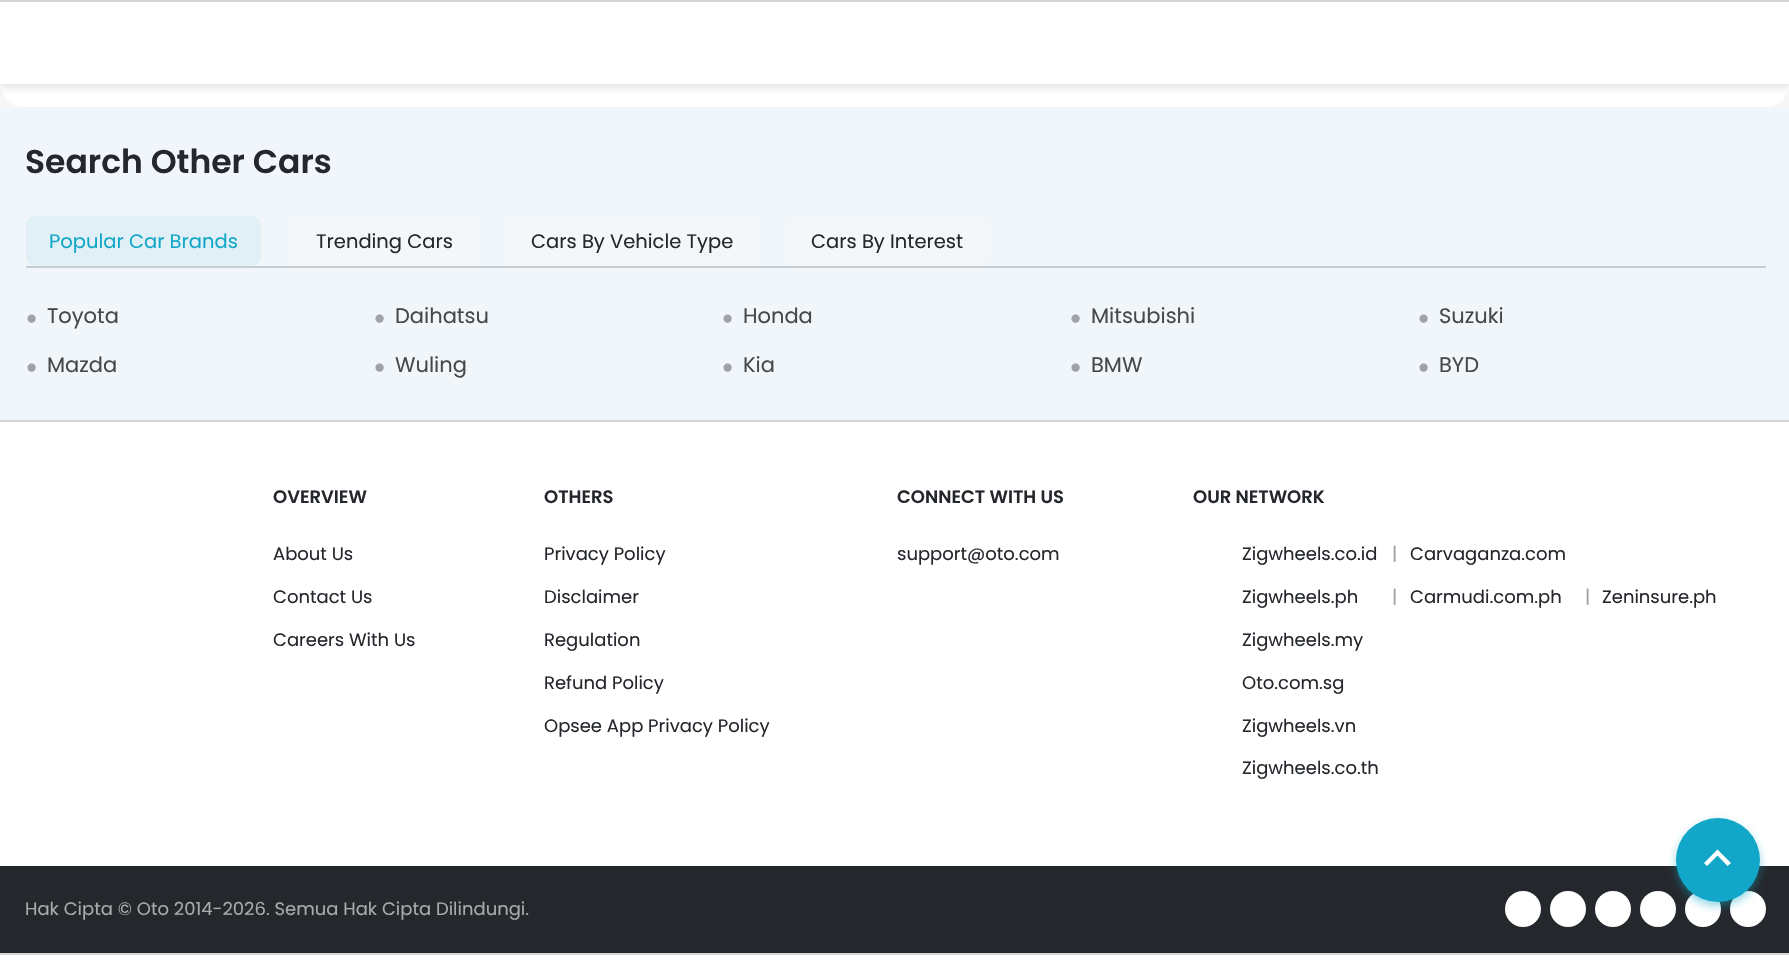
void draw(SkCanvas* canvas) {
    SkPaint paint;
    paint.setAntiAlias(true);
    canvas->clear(0xFFF6F6F6);
    paint.setColor(0xFFFFFFFF);
    canvas->drawRoundRect(SkRect::MakeXYWH(0, -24, 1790, 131), 24, 24, paint);
    paint.setColor(0x2624272C);
    paint.setMaskFilter(SkMaskFilter::MakeBlur(kNormal_SkBlurStyle, 4.5f));
    canvas->drawRect(SkRect::MakeXYWH(0, 3, 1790, 84), paint);
    paint.setMaskFilter(nullptr);
    paint.setColor(0xFFFFFFFF);
    canvas->drawRect(SkRect::MakeXYWH(0, 2, 1789, 82), paint);
    paint.setColor(0xFFD3D4D5);
    canvas->drawRect(SkRect::MakeXYWH(0, 0, 1789, 2), paint);
    paint.setColor(0xFFF1F6FA);
    canvas->drawRect(SkRect::MakeXYWH(0, 107, 1789, 313), paint);
    SkFont font1(fontMgr->matchFamilyStyle("Poppins", SkFontStyle(600, SkFontStyle::kNormal_Width, SkFontStyle::kUpright_Slant)), 33);
    font1.setSubpixel(true);
    paint.setColor(0xFF24272C);
    canvas->drawString("Search Other Cars", 25, 173, font1, paint);
    paint.setColor(0xFFC8CDD1);
    canvas->drawRect(SkRect::MakeXYWH(26, 266, 1740, 2), paint);
    paint.setColor(0xFFE1F0F7);
    canvas->drawRoundRect(SkRect::MakeXYWH(26, 216, 235, 50), 9, 9, paint);
    SkFont font2(fontMgr->matchFamilyStyle("Poppins", SkFontStyle::Normal()), 19.5f);
    font2.setSubpixel(true);
    paint.setColor(0xFF12A7C8);
    canvas->drawString("Popular Car Brands", 49, 248, font2, paint);
    paint.setColor(0xFFF4F6F9);
    canvas->drawRoundRect(SkRect::MakeXYWH(291, 216, 186, 50), 9, 9, paint);
    paint.setColor(0xFF24272C);
    canvas->drawString("Trending Cars", 316, 248, font2, paint);
    paint.setColor(0xFFF4F6F9);
    canvas->drawRoundRect(SkRect::MakeXYWH(507, 216, 251, 50), 9, 9, paint);
    paint.setColor(0xFF24272C);
    canvas->drawString("Cars By Vehicle Type", 531, 248, font2, paint);
    paint.setColor(0xFFF4F6F9);
    canvas->drawRoundRect(SkRect::MakeXYWH(788, 216, 199, 50), 9, 9, paint);
    paint.setColor(0xFF24272C);
    canvas->drawString("Cars By Interest", 811, 248, font2, paint);
    SkFont font3(fontMgr->matchFamilyStyle("Poppins", SkFontStyle::Bold()), 30);
    font3.setSubpixel(true);
    paint.setColor(0xFF9FA3A8);
    canvas->drawString("•", 25, 329, font3, paint);
    SkFont font4(fontMgr->matchFamilyStyle("Poppins", SkFontStyle::Normal()), 21);
    font4.setSubpixel(true);
    paint.setColor(0xFF484848);
    canvas->drawString("Toyota", 47, 323, font4, paint);
    paint.setColor(0xFF9FA3A8);
    canvas->drawString("•", 373, 329, font3, paint);
    paint.setColor(0xFF484848);
    canvas->drawString("Daihatsu", 395, 323, font4, paint);
    paint.setColor(0xFF9FA3A8);
    canvas->drawString("•", 721, 329, font3, paint);
    paint.setColor(0xFF484848);
    canvas->drawString("Honda", 743, 323, font4, paint);
    paint.setColor(0xFF9FA3A8);
    canvas->drawString("•", 1069, 329, font3, paint);
    paint.setColor(0xFF484848);
    canvas->drawString("Mitsubishi", 1091, 323, font4, paint);
    paint.setColor(0xFF9FA3A8);
    canvas->drawString("•", 1417, 329, font3, paint);
    paint.setColor(0xFF484848);
    canvas->drawString("Suzuki", 1439, 323, font4, paint);
    paint.setColor(0xFF9FA3A8);
    canvas->drawString("•", 25, 378, font3, paint);
    paint.setColor(0xFF484848);
    canvas->drawString("Mazda", 47, 372, font4, paint);
    paint.setColor(0xFF9FA3A8);
    canvas->drawString("•", 373, 378, font3, paint);
    paint.setColor(0xFF484848);
    canvas->drawString("Wuling", 395, 372, font4, paint);
    paint.setColor(0xFF9FA3A8);
    canvas->drawString("•", 721, 378, font3, paint);
    paint.setColor(0xFF484848);
    canvas->drawString("Kia", 743, 372, font4, paint);
    paint.setColor(0xFF9FA3A8);
    canvas->drawString("•", 1069, 378, font3, paint);
    paint.setColor(0xFF484848);
    canvas->drawString("BMW", 1091, 372, font4, paint);
    paint.setColor(0xFF9FA3A8);
    canvas->drawString("•", 1417, 378, font3, paint);
    paint.setColor(0xFF484848);
    canvas->drawString("BYD", 1439, 372, font4, paint);
    paint.setColor(0xFFFFFFFF);
    canvas->drawRect(SkRect::MakeXYWH(0, 422, 1789, 444), paint);
    paint.setColor(0xFFD3D4D5);
    canvas->drawRect(SkRect::MakeXYWH(0, 420, 1789, 2), paint);
    SkFont font5(fontMgr->matchFamilyStyle("Poppins", SkFontStyle(600, SkFontStyle::kNormal_Width, SkFontStyle::kUpright_Slant)), 18);
    font5.setSubpixel(true);
    paint.setColor(0xFF24272C);
    canvas->drawString("OVERVIEW", 273, 503, font5, paint);
    SkFont font6(fontMgr->matchFamilyStyle("Poppins", SkFontStyle::Normal()), 18);
    font6.setSubpixel(true);
    canvas->drawString("About Us", 273, 560, font6, paint);
    canvas->drawString("Contact Us", 273, 603, font6, paint);
    canvas->drawString("Careers With Us", 273, 646, font6, paint);
    canvas->drawString("OTHERS", 544, 503, font5, paint);
    canvas->drawString("Privacy Policy", 544, 560, font6, paint);
    canvas->drawString("Disclaimer", 544, 603, font6, paint);
    canvas->drawString("Regulation", 544, 646, font6, paint);
    canvas->drawString("Refund Policy", 544, 689, font6, paint);
    canvas->drawString("Opsee App Privacy Policy", 544, 732, font6, paint);
    canvas->drawString("CONNECT WITH US", 897, 503, font5, paint);
    canvas->drawString("support@oto.com", 897, 560, font6, paint);
    canvas->drawString("OUR NETWORK", 1193, 503, font5, paint);
    canvas->drawString("Zigwheels.co.id", 1242, 560, font6, paint);
    paint.setColor(0xFF9FA0A2);
    canvas->drawString("|", 1392, 560, font6, paint);
    paint.setColor(0xFF24272C);
    canvas->drawString("Carvaganza.com", 1410, 560, font6, paint);
    canvas->drawString("Zigwheels.ph", 1242, 603, font6, paint);
    paint.setColor(0xFF9FA0A2);
    canvas->drawString("|", 1392, 603, font6, paint);
    paint.setColor(0xFF24272C);
    canvas->drawString("Carmudi.com.ph", 1410, 603, font6, paint);
    paint.setColor(0xFF9FA0A2);
    canvas->drawString("|", 1585, 603, font6, paint);
    paint.setColor(0xFF24272C);
    canvas->drawString("Zeninsure.ph", 1602, 603, font6, paint);
    canvas->drawString("Zigwheels.my", 1242, 646, font6, paint);
    canvas->drawString("Oto.com.sg", 1242, 689, font6, paint);
    canvas->drawString("Zigwheels.vn", 1242, 732, font6, paint);
    canvas->drawString("Zigwheels.co.th", 1242, 774, font6, paint);
    canvas->drawRect(SkRect::MakeXYWH(0, 866, 1789, 87), paint);
    paint.setColor(0xFFA9AAAD);
    canvas->drawString("Hak Cipta © Oto 2014-2026. Semua Hak Cipta Dilindungi.", 25, 915, font6, paint);
    paint.setColor(0xFFFFFFFF);
    canvas->drawCircle(1523, 909, 18, paint);
    canvas->drawCircle(1568, 909, 18, paint);
    canvas->drawCircle(1613, 909, 18, paint);
    canvas->drawCircle(1658, 909, 18, paint);
    canvas->drawCircle(1703, 909, 18, paint);
    canvas->drawCircle(1748, 909, 18, paint);
    paint.setColor(0x7512A7C8);
    paint.setMaskFilter(SkMaskFilter::MakeBlur(kNormal_SkBlurStyle, 4.5f));
    canvas->drawRoundRect(SkRect::MakeXYWH(1676, 822, 84, 84), 42, 42, paint);
    paint.setMaskFilter(nullptr);
    paint.setColor(0xFF12A7C8);
    canvas->drawCircle(1718, 860, 42, paint);
    paint.setColor(0xFFFFFFFF);
    canvas->drawPath(SkPathBuilder().moveTo(1727.5f, 866).lineTo(1717.5f, 855.5f).lineTo(1707, 866).lineTo(1704, 863).lineTo(1717.5f, 849.5f).lineTo(1731, 863).close().detach(), paint);
    canvas->drawRect(SkRect::MakeXYWH(0, 955, 1789, 14), paint);
    paint.setColor(0xFFD3D4D5);
    canvas->drawRect(SkRect::MakeXYWH(0, 953, 1789, 2), paint);
}
